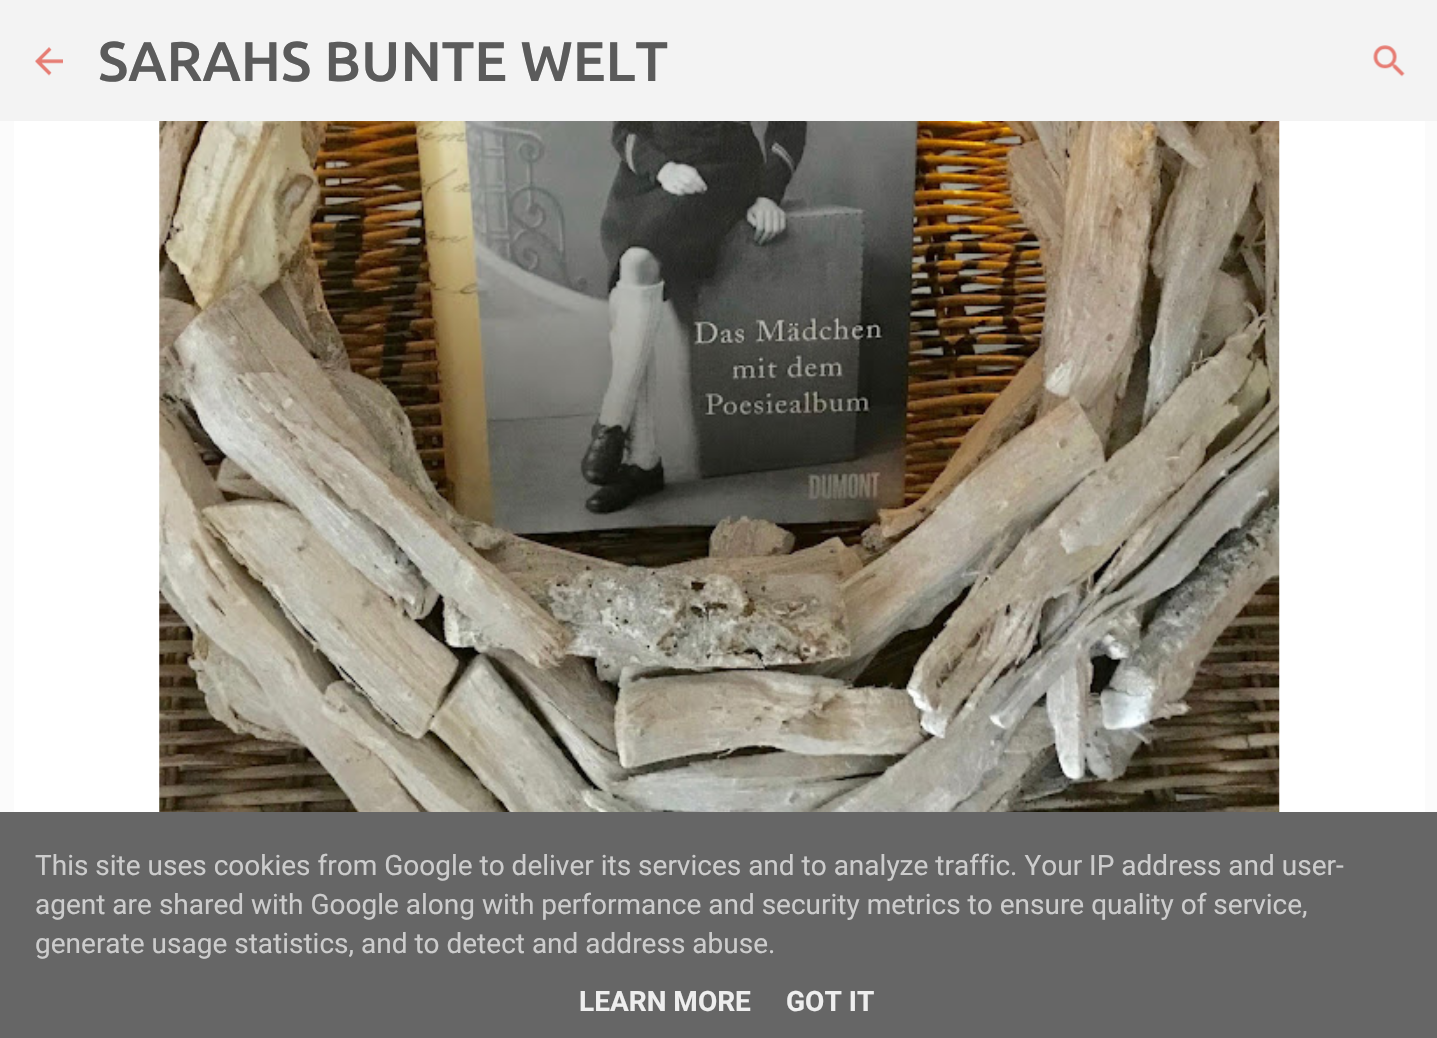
void draw(SkCanvas* canvas) {
    SkPaint paint;
    paint.setAntiAlias(true);
    canvas->clear(0xFFFBFBFB);
    paint.setColor(0xFFF3F3F3);
    canvas->drawRect(SkRect::MakeXYWH(0, 0, 1437, 121), paint);
    canvas->drawImageRect(SkImages::DeferredFromEncodedData(SkData::MakeFromFileName("img1.png")), SkRect::MakeXYWH(35, 47, 28, 29), SkSamplingOptions());
    SkFont font1(fontMgr->matchFamilyStyle("Ubuntu", SkFontStyle(500, SkFontStyle::kNormal_Width, SkFontStyle::kUpright_Slant)), 56);
    font1.setSubpixel(true);
    paint.setColor(0xFF5B5B5B);
    canvas->drawString("SARAHS BUNTE WELT", 98, 81, font1, paint);
    canvas->drawImageRect(SkImages::DeferredFromEncodedData(SkData::MakeFromFileName("img2.png")), SkRect::MakeXYWH(1373, 45, 32, 32), SkSamplingOptions());
    paint.setColor(0xFFFFFFFF);
    canvas->drawRect(SkRect::MakeXYWH(14, 121, 1411, 691), paint);
    canvas->drawImageRect(SkImages::DeferredFromEncodedData(SkData::MakeFromFileName("img3.png")), SkRect::MakeXYWH(159, 121, 1121, 691), SkSamplingOptions());
    paint.setColor(0xFF666666);
    canvas->drawRect(SkRect::MakeXYWH(0, 812, 1437, 226), paint);
    SkFont font2(fontMgr->matchFamilyStyle("Roboto", SkFontStyle::Normal()), 28);
    font2.setSubpixel(true);
    paint.setColor(0xFFCCCCCC);
    canvas->drawString("This site uses cookies from Google to deliver its services and to analyze traffic. Your IP address and user-", 35, 875, font2, paint);
    canvas->drawString("agent are shared with Google along with performance and security metrics to ensure quality of service,", 35, 914, font2, paint);
    canvas->drawString("generate usage statistics, and to detect and address abuse.", 35, 953, font2, paint);
    SkFont font3(fontMgr->matchFamilyStyle("Roboto", SkFontStyle::Bold()), 28);
    font3.setSubpixel(true);
    paint.setColor(0xFFEEEEEE);
    canvas->drawString("LEARN MORE", 579, 1011, font3, paint);
    canvas->drawString("GOT IT", 786, 1011, font3, paint);
}
